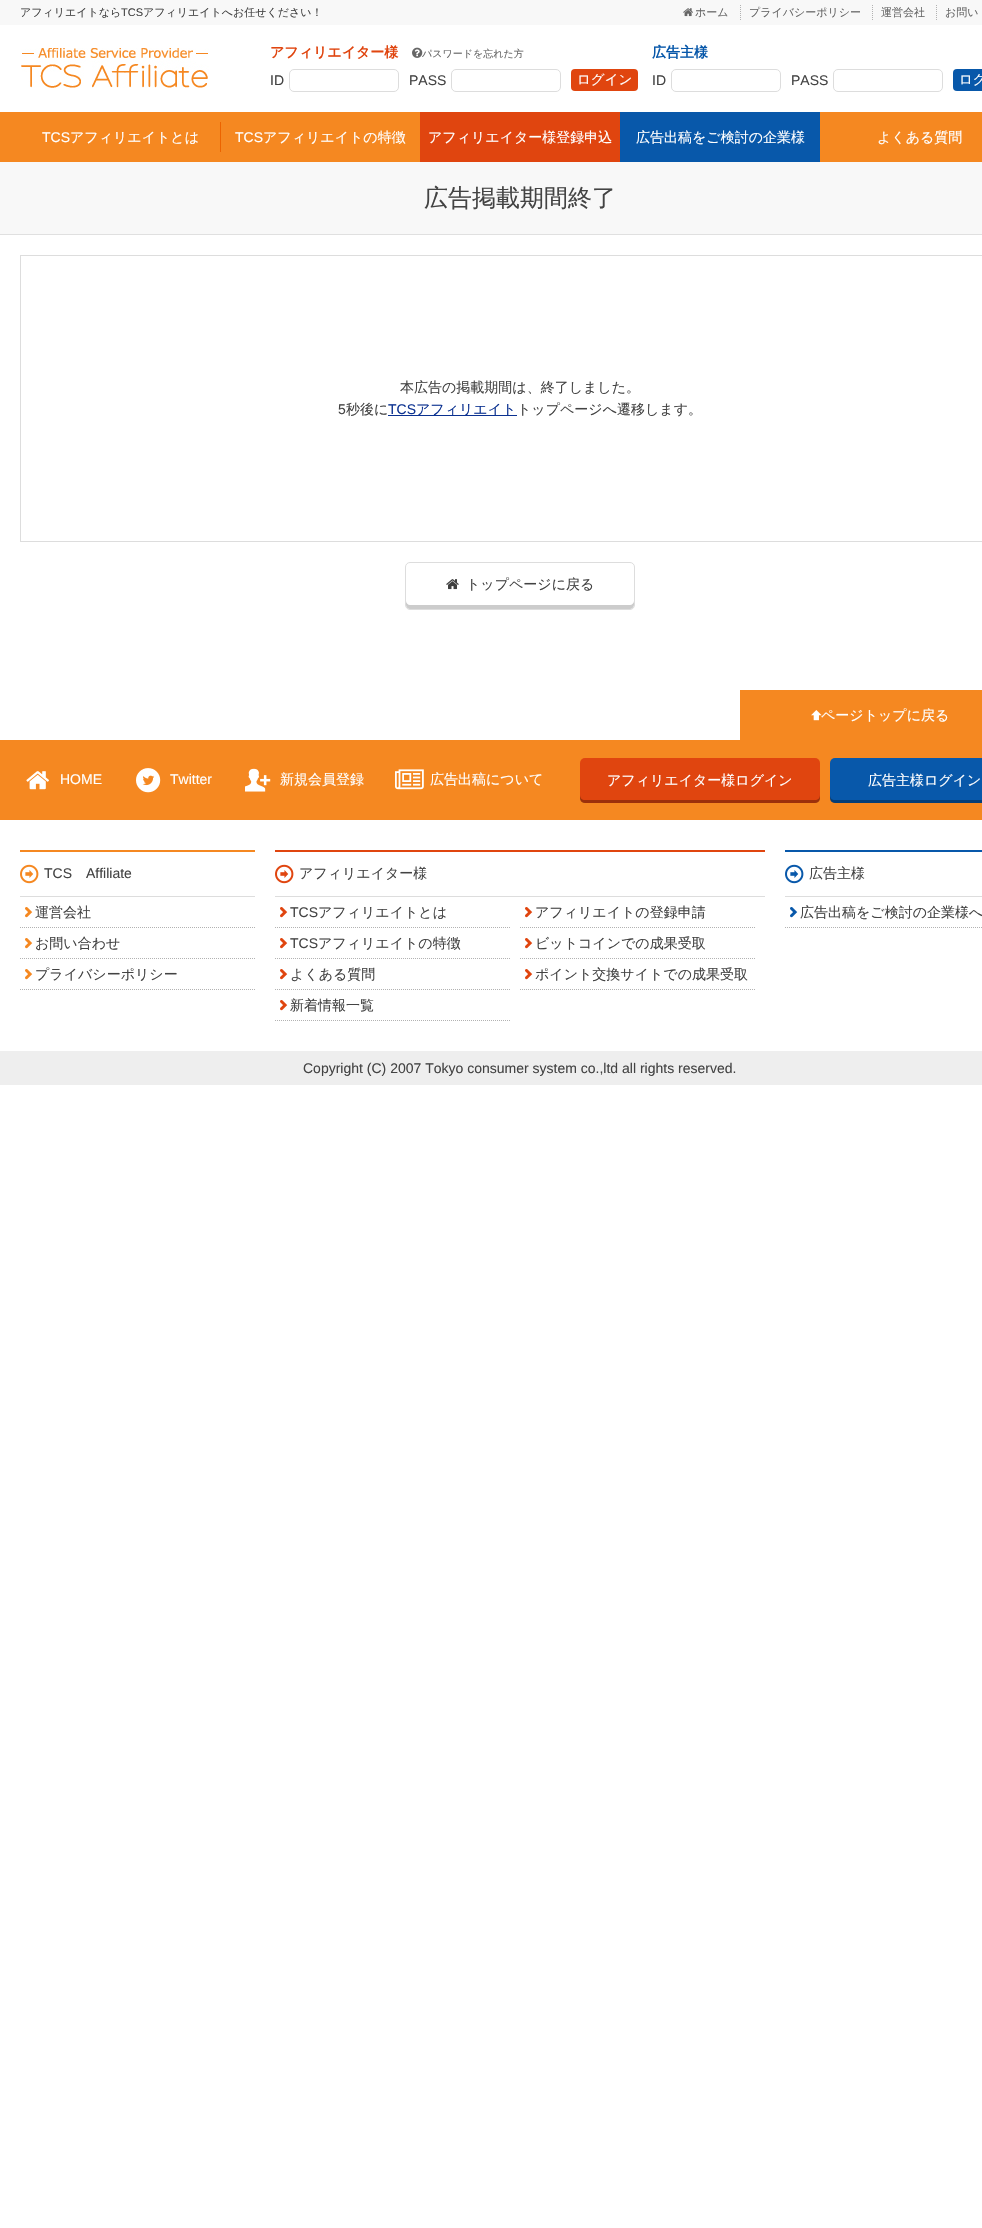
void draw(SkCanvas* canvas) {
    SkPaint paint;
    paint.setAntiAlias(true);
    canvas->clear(0xFFFFFFFF);
    paint.setColor(0xFFF8F8F8);
    canvas->drawRect(SkRect::MakeXYWH(0, 0, 982, 25), paint);
    SkFont font1(fontMgr->matchFamilyStyle("WenQuanYi Zen Hei", SkFontStyle(500, SkFontStyle::kNormal_Width, SkFontStyle::kUpright_Slant)), 11);
    font1.setSubpixel(true);
    paint.setColor(0xFF434343);
    canvas->drawString("アフィリエイトなら", 20, 16, font1, paint);
    SkFont font2(fontMgr->matchFamilyStyle("Liberation Sans", SkFontStyle::Normal()), 11);
    font2.setSubpixel(true);
    canvas->drawString("TCS", 121, 16, font2, paint);
    canvas->drawString("アフィリエイトへお任せください！", 143, 16, font1, paint);
    canvas->drawImageRect(SkImages::DeferredFromEncodedData(SkData::MakeFromFileName("img1.png")), SkRect::MakeXYWH(683, 8, 10, 9), SkSamplingOptions());
    paint.setColor(0xFF666666);
    canvas->drawString("ホーム", 695, 16, font1, paint);
    paint.setStyle(SkPaint::kStroke_Style);
    paint.setStrokeWidth(1);
    paint.setColor(0xFFB2B2B2);
    paint.setPathEffect(SkDashPathEffect::Make({{1, 1}}, 0));
    canvas->drawPath(SkPathBuilder().moveTo(740.5f, 5).lineTo(740.5f, 20).detach(), paint);
    paint.setPathEffect(nullptr);
    paint.setStyle(SkPaint::kFill_Style);
    paint.setColor(0xFF666666);
    canvas->drawString("プライバシーポリシー", 749, 16, font1, paint);
    paint.setStyle(SkPaint::kStroke_Style);
    paint.setColor(0xFFB2B2B2);
    paint.setPathEffect(SkDashPathEffect::Make({{1, 1}}, 0));
    canvas->drawPath(SkPathBuilder().moveTo(872.5f, 5).lineTo(872.5f, 20).detach(), paint);
    paint.setPathEffect(nullptr);
    paint.setStyle(SkPaint::kFill_Style);
    paint.setColor(0xFF666666);
    canvas->drawString("運営会社", 881, 16, font1, paint);
    paint.setStyle(SkPaint::kStroke_Style);
    paint.setColor(0xFFB2B2B2);
    paint.setPathEffect(SkDashPathEffect::Make({{1, 1}}, 0));
    canvas->drawPath(SkPathBuilder().moveTo(936.5f, 5).lineTo(936.5f, 20).detach(), paint);
    paint.setPathEffect(nullptr);
    paint.setStyle(SkPaint::kFill_Style);
    paint.setColor(0xFF666666);
    canvas->drawString("お問い", 945, 16, font1, paint);
    canvas->drawImageRect(SkImages::DeferredFromEncodedData(SkData::MakeFromFileName("img2.png")), SkRect::MakeXYWH(21, 48, 188, 40), SkSamplingOptions());
    SkFont font3(fontMgr->matchFamilyStyle("WenQuanYi Zen Hei", SkFontStyle::Bold()), 14);
    font3.setSubpixel(true);
    paint.setColor(0xFFE0450F);
    canvas->drawString("アフィリエイター様", 270, 57, font3, paint);
    canvas->drawImageRect(SkImages::DeferredFromEncodedData(SkData::MakeFromFileName("img3.png")), SkRect::MakeXYWH(412, 47, 11, 11), SkSamplingOptions());
    SkFont font4(fontMgr->matchFamilyStyle("WenQuanYi Zen Hei", SkFontStyle(500, SkFontStyle::kNormal_Width, SkFontStyle::kUpright_Slant)), 10);
    font4.setSubpixel(true);
    paint.setColor(0xFF666666);
    canvas->drawString("パスワードを忘れた方", 422, 57, font4, paint);
    SkFont font5(fontMgr->matchFamilyStyle("Liberation Sans", SkFontStyle::Normal()), 14);
    font5.setSubpixel(true);
    paint.setColor(0xFF434343);
    canvas->drawString("ID", 270, 85, font5, paint);
    paint.setStyle(SkPaint::kStroke_Style);
    paint.setColor(0xFFDDDDDD);
    canvas->drawRoundRect(SkRect::MakeXYWH(289.5f, 69.5f, 109, 22), 4.5f, 4.5f, paint);
    paint.setStyle(SkPaint::kFill_Style);
    paint.setColor(0xFF434343);
    canvas->drawString("PASS", 409, 85, font5, paint);
    paint.setStyle(SkPaint::kStroke_Style);
    paint.setColor(0xFFDDDDDD);
    canvas->drawRoundRect(SkRect::MakeXYWH(451.5f, 69.5f, 109, 22), 4.5f, 4.5f, paint);
    paint.setStyle(SkPaint::kFill_Style);
    paint.setColor(0xFFE0450F);
    canvas->drawRoundRect(SkRect::MakeXYWH(571, 69, 67, 22), 4, 4, paint);
    SkFont font6(fontMgr->matchFamilyStyle("WenQuanYi Zen Hei", SkFontStyle(500, SkFontStyle::kNormal_Width, SkFontStyle::kUpright_Slant)), 13.5f);
    font6.setSubpixel(true);
    paint.setColor(0xFFFFFFFF);
    canvas->drawString("ログイン", 577, 84, font6, paint);
    paint.setColor(0xFF0858AA);
    canvas->drawString("広告主様", 652, 57, font3, paint);
    paint.setColor(0xFF434343);
    canvas->drawString("ID", 652, 85, font5, paint);
    paint.setStyle(SkPaint::kStroke_Style);
    paint.setColor(0xFFDDDDDD);
    canvas->drawRoundRect(SkRect::MakeXYWH(671.5f, 69.5f, 109, 22), 4.5f, 4.5f, paint);
    paint.setStyle(SkPaint::kFill_Style);
    paint.setColor(0xFF434343);
    canvas->drawString("PASS", 791, 85, font5, paint);
    paint.setStyle(SkPaint::kStroke_Style);
    paint.setColor(0xFFDDDDDD);
    canvas->drawRoundRect(SkRect::MakeXYWH(833.5f, 69.5f, 109, 22), 4.5f, 4.5f, paint);
    paint.setStyle(SkPaint::kFill_Style);
    paint.setColor(0xFF0858AA);
    canvas->drawRoundRect(SkRect::MakeXYWH(953, 69, 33, 22), 4, 4, paint);
    paint.setColor(0xFFFFFFFF);
    canvas->drawString("ログ", 959, 84, font6, paint);
    paint.setColor(0xFFF58821);
    canvas->drawRect(SkRect::MakeXYWH(0, 112, 982, 50), paint);
    paint.setColor(0xFFFFFFFF);
    canvas->drawString("TCS", 42, 142, font5, paint);
    SkFont font7(fontMgr->matchFamilyStyle("WenQuanYi Zen Hei", SkFontStyle(500, SkFontStyle::kNormal_Width, SkFontStyle::kUpright_Slant)), 14);
    font7.setSubpixel(true);
    canvas->drawString("アフィリエイトとは", 70, 142, font7, paint);
    paint.setColor(0xFFEC6300);
    canvas->drawRect(SkRect::MakeXYWH(220, 122, 1, 30), paint);
    paint.setColor(0xFFFFFFFF);
    canvas->drawString("TCS", 235, 142, font5, paint);
    canvas->drawString("アフィリエイトの特徴", 263, 142, font7, paint);
    paint.setColor(0xFFE0450F);
    canvas->drawRect(SkRect::MakeXYWH(420, 112, 200, 50), paint);
    paint.setColor(0xFFFFFFFF);
    canvas->drawString("アフィリエイター様登録申込", 428, 142, font7, paint);
    paint.setColor(0xFF0858AA);
    canvas->drawRect(SkRect::MakeXYWH(620, 112, 200, 50), paint);
    paint.setColor(0xFFFFFFFF);
    canvas->drawString("広告出稿をご検討の企業様", 636, 142, font7, paint);
    canvas->drawString("よくある質問", 877, 142, font7, paint);
    paint.setColor(0xFFF8F8F8);
    canvas->drawRect(SkRect::MakeXYWH(0, 162, 982, 72), paint);
    paint.setColor(0xFFE0E0E0);
    canvas->drawRect(SkRect::MakeXYWH(0, 234, 982, 1), paint);
    SkFont font8(fontMgr->matchFamilyStyle("WenQuanYi Zen Hei", SkFontStyle(500, SkFontStyle::kNormal_Width, SkFontStyle::kUpright_Slant)), 24);
    font8.setSubpixel(true);
    paint.setColor(0xFF434343);
    canvas->drawString("広告掲載期間終了", 424, 206, font8, paint);
    paint.setStyle(SkPaint::kStroke_Style);
    paint.setColor(0xFFDDDDDD);
    canvas->drawRect(SkRect::MakeXYWH(20.5f, 255.5f, 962, 286), paint);
    paint.setStyle(SkPaint::kFill_Style);
    paint.setColor(0xFF434343);
    canvas->drawString("本広告の掲載期間は、終了しました。", 400, 392, font7, paint);
    canvas->drawString("5", 338, 414, font5, paint);
    canvas->drawString("秒後に", 346, 414, font7, paint);
    paint.setColor(0xFF0B3190);
    canvas->drawString("TCS", 388, 414, font5, paint);
    canvas->drawRect(SkRect::MakeXYWH(388, 415, 129, 1), paint);
    canvas->drawString("アフィリエイト", 416, 414, font7, paint);
    paint.setColor(0xFF434343);
    canvas->drawString("トップページへ遷移します。", 517, 414, font7, paint);
    paint.setColor(0xFFCCCCCC);
    canvas->drawPath(SkPathBuilder().moveTo(406, 601).lineTo(406, 605).cubicTo(406, 607, 408, 609, 410, 609).lineTo(630, 609).cubicTo(632, 609, 634, 607, 634, 605).lineTo(634, 601).cubicTo(634, 603, 632, 605, 630, 605).lineTo(410, 605).cubicTo(408, 605, 406, 603, 406, 601).close().detach(), paint);
    paint.setStyle(SkPaint::kStroke_Style);
    paint.setColor(0xFFDDDDDD);
    canvas->drawRoundRect(SkRect::MakeXYWH(405.5f, 562.5f, 229, 47), 4.5f, 4.5f, paint);
    canvas->drawImageRect(SkImages::DeferredFromEncodedData(SkData::MakeFromFileName("img4.png")), SkRect::MakeXYWH(446, 579, 13, 11), SkSamplingOptions());
    paint.setStyle(SkPaint::kFill_Style);
    paint.setColor(0xFF434343);
    canvas->drawString("トップページに戻る", 466, 589, font7, paint);
    paint.setColor(0xFFF58821);
    canvas->drawRect(SkRect::MakeXYWH(740, 690, 242, 50), paint);
    canvas->drawImageRect(SkImages::DeferredFromEncodedData(SkData::MakeFromFileName("img5.png")), SkRect::MakeXYWH(811, 710, 11, 11), SkSamplingOptions());
    paint.setColor(0xFFFFFFFF);
    canvas->drawString("ページトップに戻る", 821, 720, font7, paint);
    paint.setColor(0xFFF58821);
    canvas->drawRect(SkRect::MakeXYWH(0, 740, 982, 80), paint);
    canvas->drawImageRect(SkImages::DeferredFromEncodedData(SkData::MakeFromFileName("img6.png")), SkRect::MakeXYWH(26, 771, 23, 19), SkSamplingOptions());
    paint.setColor(0xFFFFFFFF);
    canvas->drawString("HOME", 60, 784, font5, paint);
    canvas->drawImageRect(SkImages::DeferredFromEncodedData(SkData::MakeFromFileName("img7.png")), SkRect::MakeXYWH(136, 768, 25, 25), SkSamplingOptions());
    canvas->drawString("Twitter", 170, 784, font5, paint);
    canvas->drawImageRect(SkImages::DeferredFromEncodedData(SkData::MakeFromFileName("img8.png")), SkRect::MakeXYWH(245, 768, 26, 24), SkSamplingOptions());
    canvas->drawString("新規会員登録", 280, 784, font7, paint);
    canvas->drawImageRect(SkImages::DeferredFromEncodedData(SkData::MakeFromFileName("img9.png")), SkRect::MakeXYWH(395, 769, 29, 21), SkSamplingOptions());
    canvas->drawString("広告出稿について", 430, 784, font7, paint);
    paint.setColor(0xFFE0450F);
    canvas->drawRoundRect(SkRect::MakeXYWH(580, 758, 240, 45), 5, 5, paint);
    paint.setColor(0x4D000000);
    canvas->drawPath(SkPathBuilder().moveTo(580, 795).lineTo(580, 798).cubicTo(580, 801, 582, 803, 585, 803).lineTo(815, 803).cubicTo(818, 803, 820, 801, 820, 798).lineTo(820, 795).cubicTo(820, 798, 818, 800, 815, 800).lineTo(585, 800).cubicTo(582, 800, 580, 798, 580, 795).close().detach(), paint);
    paint.setColor(0xFFFFFFFF);
    canvas->drawString("アフィリエイター様ログイン", 607, 785, font7, paint);
    paint.setColor(0xFF0858AA);
    canvas->drawRoundRect(SkRect::MakeXYWH(830, 758, 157, 45), 5, 5, paint);
    paint.setColor(0x4D000000);
    canvas->drawPath(SkPathBuilder().moveTo(830, 795).lineTo(830, 798).cubicTo(830, 801, 832, 803, 835, 803).lineTo(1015, 803).cubicTo(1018, 803, 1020, 801, 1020, 798).lineTo(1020, 795).cubicTo(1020, 798, 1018, 800, 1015, 800).lineTo(835, 800).cubicTo(832, 800, 830, 798, 830, 795).close().detach(), paint);
    paint.setColor(0xFFFFFFFF);
    canvas->drawString("広告主様ログイン", 868, 785, font7, paint);
    paint.setColor(0xFFF58821);
    canvas->drawRect(SkRect::MakeXYWH(20, 850, 235, 2), paint);
    paint.setColor(0xFFDDDDDD);
    canvas->drawRect(SkRect::MakeXYWH(20, 896, 235, 1), paint);
    canvas->drawImageRect(SkImages::DeferredFromEncodedData(SkData::MakeFromFileName("img10.png")), SkRect::MakeXYWH(20, 864, 19, 20), SkSamplingOptions());
    paint.setColor(0xFF434343);
    canvas->drawString("TCS", 44, 878, font5, paint);
    canvas->drawString("Affiliate", 86, 878, font5, paint);
    paint.setStyle(SkPaint::kStroke_Style);
    paint.setColor(0xFFB2B2B2);
    paint.setPathEffect(SkDashPathEffect::Make({{1, 1}}, 0));
    canvas->drawPath(SkPathBuilder().moveTo(20, 927.5f).lineTo(255, 927.5f).detach(), paint);
    paint.setPathEffect(nullptr);
    canvas->drawImageRect(SkImages::DeferredFromEncodedData(SkData::MakeFromFileName("img11.png")), SkRect::MakeXYWH(25, 907, 8, 11), SkSamplingOptions());
    paint.setStyle(SkPaint::kFill_Style);
    paint.setColor(0xFF434343);
    canvas->drawString("運営会社", 35, 917, font7, paint);
    paint.setStyle(SkPaint::kStroke_Style);
    paint.setColor(0xFFB2B2B2);
    paint.setPathEffect(SkDashPathEffect::Make({{1, 1}}, 0));
    canvas->drawPath(SkPathBuilder().moveTo(20, 958.5f).lineTo(255, 958.5f).detach(), paint);
    paint.setPathEffect(nullptr);
    canvas->drawImageRect(SkImages::DeferredFromEncodedData(SkData::MakeFromFileName("img11.png")), SkRect::MakeXYWH(25, 938, 8, 11), SkSamplingOptions());
    paint.setStyle(SkPaint::kFill_Style);
    paint.setColor(0xFF434343);
    canvas->drawString("お問い合わせ", 35, 948, font7, paint);
    paint.setStyle(SkPaint::kStroke_Style);
    paint.setColor(0xFFB2B2B2);
    paint.setPathEffect(SkDashPathEffect::Make({{1, 1}}, 0));
    canvas->drawPath(SkPathBuilder().moveTo(20, 989.5f).lineTo(255, 989.5f).detach(), paint);
    paint.setPathEffect(nullptr);
    canvas->drawImageRect(SkImages::DeferredFromEncodedData(SkData::MakeFromFileName("img11.png")), SkRect::MakeXYWH(25, 969, 8, 11), SkSamplingOptions());
    paint.setStyle(SkPaint::kFill_Style);
    paint.setColor(0xFF434343);
    canvas->drawString("プライバシーポリシー", 35, 979, font7, paint);
    paint.setColor(0xFFE0450F);
    canvas->drawRect(SkRect::MakeXYWH(275, 850, 490, 2), paint);
    paint.setColor(0xFFDDDDDD);
    canvas->drawRect(SkRect::MakeXYWH(275, 896, 490, 1), paint);
    canvas->drawImageRect(SkImages::DeferredFromEncodedData(SkData::MakeFromFileName("img12.png")), SkRect::MakeXYWH(275, 864, 19, 20), SkSamplingOptions());
    paint.setColor(0xFF434343);
    canvas->drawString("アフィリエイター様", 299, 878, font7, paint);
    paint.setStyle(SkPaint::kStroke_Style);
    paint.setColor(0xFFB2B2B2);
    paint.setPathEffect(SkDashPathEffect::Make({{1, 1}}, 0));
    canvas->drawPath(SkPathBuilder().moveTo(275, 927.5f).lineTo(510, 927.5f).detach(), paint);
    paint.setPathEffect(nullptr);
    canvas->drawImageRect(SkImages::DeferredFromEncodedData(SkData::MakeFromFileName("img13.png")), SkRect::MakeXYWH(280, 907, 8, 11), SkSamplingOptions());
    paint.setStyle(SkPaint::kFill_Style);
    paint.setColor(0xFF434343);
    canvas->drawString("TCS", 290, 917, font5, paint);
    canvas->drawString("アフィリエイトとは", 318, 917, font7, paint);
    paint.setStyle(SkPaint::kStroke_Style);
    paint.setColor(0xFFB2B2B2);
    paint.setPathEffect(SkDashPathEffect::Make({{1, 1}}, 0));
    canvas->drawPath(SkPathBuilder().moveTo(275, 958.5f).lineTo(510, 958.5f).detach(), paint);
    paint.setPathEffect(nullptr);
    canvas->drawImageRect(SkImages::DeferredFromEncodedData(SkData::MakeFromFileName("img13.png")), SkRect::MakeXYWH(280, 938, 8, 11), SkSamplingOptions());
    paint.setStyle(SkPaint::kFill_Style);
    paint.setColor(0xFF434343);
    canvas->drawString("TCS", 290, 948, font5, paint);
    canvas->drawString("アフィリエイトの特徴", 318, 948, font7, paint);
    paint.setStyle(SkPaint::kStroke_Style);
    paint.setColor(0xFFB2B2B2);
    paint.setPathEffect(SkDashPathEffect::Make({{1, 1}}, 0));
    canvas->drawPath(SkPathBuilder().moveTo(275, 989.5f).lineTo(510, 989.5f).detach(), paint);
    paint.setPathEffect(nullptr);
    canvas->drawImageRect(SkImages::DeferredFromEncodedData(SkData::MakeFromFileName("img13.png")), SkRect::MakeXYWH(280, 969, 8, 11), SkSamplingOptions());
    paint.setStyle(SkPaint::kFill_Style);
    paint.setColor(0xFF434343);
    canvas->drawString("よくある質問", 290, 979, font7, paint);
    paint.setStyle(SkPaint::kStroke_Style);
    paint.setColor(0xFFB2B2B2);
    paint.setPathEffect(SkDashPathEffect::Make({{1, 1}}, 0));
    canvas->drawPath(SkPathBuilder().moveTo(275, 1020.5f).lineTo(510, 1020.5f).detach(), paint);
    paint.setPathEffect(nullptr);
    canvas->drawImageRect(SkImages::DeferredFromEncodedData(SkData::MakeFromFileName("img13.png")), SkRect::MakeXYWH(280, 1000, 8, 11), SkSamplingOptions());
    paint.setStyle(SkPaint::kFill_Style);
    paint.setColor(0xFF434343);
    canvas->drawString("新着情報一覧", 290, 1010, font7, paint);
    paint.setStyle(SkPaint::kStroke_Style);
    paint.setColor(0xFFB2B2B2);
    paint.setPathEffect(SkDashPathEffect::Make({{1, 1}}, 0));
    canvas->drawPath(SkPathBuilder().moveTo(520, 927.5f).lineTo(755, 927.5f).detach(), paint);
    paint.setPathEffect(nullptr);
    canvas->drawImageRect(SkImages::DeferredFromEncodedData(SkData::MakeFromFileName("img13.png")), SkRect::MakeXYWH(525, 907, 8, 11), SkSamplingOptions());
    paint.setStyle(SkPaint::kFill_Style);
    paint.setColor(0xFF434343);
    canvas->drawString("アフィリエイトの登録申請", 535, 917, font7, paint);
    paint.setStyle(SkPaint::kStroke_Style);
    paint.setColor(0xFFB2B2B2);
    paint.setPathEffect(SkDashPathEffect::Make({{1, 1}}, 0));
    canvas->drawPath(SkPathBuilder().moveTo(520, 958.5f).lineTo(755, 958.5f).detach(), paint);
    paint.setPathEffect(nullptr);
    canvas->drawImageRect(SkImages::DeferredFromEncodedData(SkData::MakeFromFileName("img13.png")), SkRect::MakeXYWH(525, 938, 8, 11), SkSamplingOptions());
    paint.setStyle(SkPaint::kFill_Style);
    paint.setColor(0xFF434343);
    canvas->drawString("ビットコインでの成果受取", 535, 948, font7, paint);
    paint.setStyle(SkPaint::kStroke_Style);
    paint.setColor(0xFFB2B2B2);
    paint.setPathEffect(SkDashPathEffect::Make({{1, 1}}, 0));
    canvas->drawPath(SkPathBuilder().moveTo(520, 989.5f).lineTo(755, 989.5f).detach(), paint);
    paint.setPathEffect(nullptr);
    canvas->drawImageRect(SkImages::DeferredFromEncodedData(SkData::MakeFromFileName("img13.png")), SkRect::MakeXYWH(525, 969, 8, 11), SkSamplingOptions());
    paint.setStyle(SkPaint::kFill_Style);
    paint.setColor(0xFF434343);
    canvas->drawString("ポイント交換サイトでの成果受取", 535, 979, font7, paint);
    paint.setColor(0xFF0858AA);
    canvas->drawRect(SkRect::MakeXYWH(785, 850, 197, 2), paint);
    paint.setColor(0xFFDDDDDD);
    canvas->drawRect(SkRect::MakeXYWH(785, 896, 197, 1), paint);
    canvas->drawImageRect(SkImages::DeferredFromEncodedData(SkData::MakeFromFileName("img14.png")), SkRect::MakeXYWH(785, 864, 19, 20), SkSamplingOptions());
    paint.setColor(0xFF434343);
    canvas->drawString("広告主様", 809, 878, font7, paint);
    paint.setStyle(SkPaint::kStroke_Style);
    paint.setColor(0xFFB2B2B2);
    paint.setPathEffect(SkDashPathEffect::Make({{1, 1}}, 0));
    canvas->drawPath(SkPathBuilder().moveTo(785, 927.5f).lineTo(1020, 927.5f).detach(), paint);
    paint.setPathEffect(nullptr);
    canvas->drawImageRect(SkImages::DeferredFromEncodedData(SkData::MakeFromFileName("img15.png")), SkRect::MakeXYWH(790, 907, 8, 11), SkSamplingOptions());
    paint.setStyle(SkPaint::kFill_Style);
    paint.setColor(0xFF434343);
    canvas->drawString("広告出稿をご検討の企業様へ", 800, 917, font7, paint);
    paint.setColor(0xFFEEEEEE);
    canvas->drawRect(SkRect::MakeXYWH(0, 1051, 982, 34), paint);
    paint.setColor(0xFF434343);
    canvas->drawString("Copyright (C) 2007 Tokyo consumer system co.,ltd all rights reserved.", 303, 1073, font5, paint);
}
